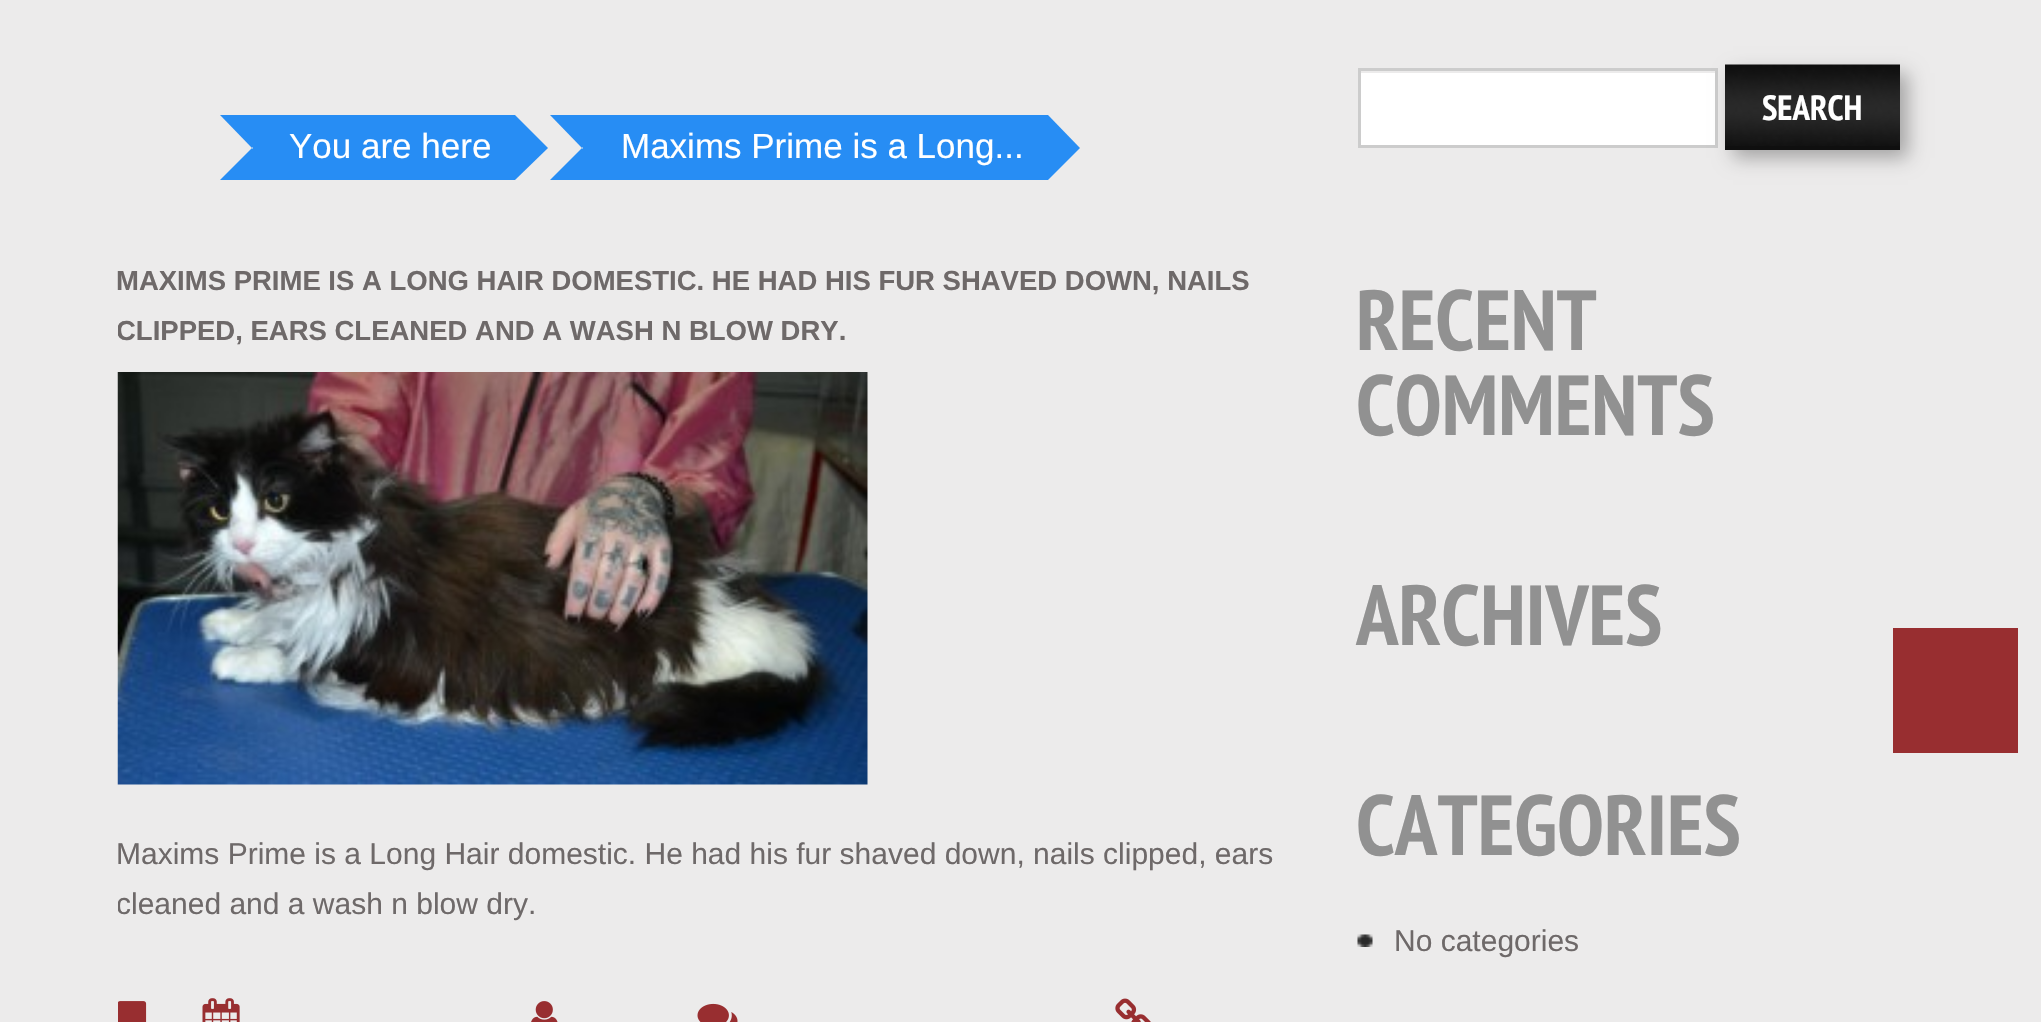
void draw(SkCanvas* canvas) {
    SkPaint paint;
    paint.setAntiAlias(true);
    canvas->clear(0xFFECEBEB);
    paint.setColor(0xFF278DF4);
    canvas->drawRect(SkRect::MakeXYWH(285, 115, 230, 65), paint);
    canvas->drawPath(SkPathBuilder().moveTo(220, 115).lineTo(285, 115).lineTo(252, 148).close().detach(), paint);
    canvas->drawRect(SkRect::MakeXYWH(253, 115, 32, 65), paint);
    canvas->drawPath(SkPathBuilder().moveTo(285, 180).lineTo(220, 180).lineTo(252, 148).close().detach(), paint);
    SkFont font1(fontMgr->matchFamilyStyle("Liberation Sans", SkFontStyle::Normal()), 35);
    font1.setSubpixel(true);
    paint.setColor(0xFFFFFFFF);
    canvas->drawString("You are here", 289, 158, font1, paint);
    paint.setColor(0xFF278DF4);
    canvas->drawPath(SkPathBuilder().moveTo(515, 180).lineTo(515, 115).lineTo(548, 148).close().detach(), paint);
    canvas->drawRect(SkRect::MakeXYWH(615, 115, 433, 65), paint);
    canvas->drawPath(SkPathBuilder().moveTo(550, 115).lineTo(615, 115).lineTo(582, 148).close().detach(), paint);
    canvas->drawRect(SkRect::MakeXYWH(583, 115, 32, 65), paint);
    canvas->drawPath(SkPathBuilder().moveTo(615, 180).lineTo(550, 180).lineTo(582, 148).close().detach(), paint);
    paint.setColor(0xFFFFFFFF);
    canvas->drawString("Maxims Prime is a Long...", 621, 158, font1, paint);
    paint.setColor(0xFF278DF4);
    canvas->drawPath(SkPathBuilder().moveTo(1048, 180).lineTo(1048, 115).lineTo(1080, 148).close().detach(), paint);
    SkFont font2(fontMgr->matchFamilyStyle("Liberation Sans", SkFontStyle::Bold()), 27.5f);
    font2.setSubpixel(true);
    paint.setColor(0xFF6E6969);
    canvas->drawString("MAXIMS PRIME IS A LONG HAIR DOMESTIC. HE HAD HIS FUR SHAVED DOWN, NAILS", 116, 290, font2, paint);
    canvas->save();
    canvas->clipRect(SkRect::MakeXYWH(118, 255, 1190, 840));
    canvas->drawString("CLIPPED, EARS CLEANED AND A WASH N BLOW DRY.", 116, 340, font2, paint);
    canvas->restore();
    canvas->drawImageRect(SkImages::DeferredFromEncodedData(SkData::MakeFromFileName("img1.png")), SkRect::MakeXYWH(117, 372, 751, 413), SkSamplingOptions());
    SkFont font3(fontMgr->matchFamilyStyle("Liberation Sans", SkFontStyle::Normal()), 30);
    font3.setSubpixel(true);
    canvas->drawString("Maxims Prime is a Long Hair domestic. He had his fur shaved down, nails clipped, ears", 116, 864, font3, paint);
    canvas->save();
    canvas->clipRect(SkRect::MakeXYWH(118, 255, 1190, 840));
    canvas->drawString("cleaned and a wash n blow dry.", 116, 914, font3, paint);
    canvas->restore();
    canvas->drawImageRect(SkImages::DeferredFromEncodedData(SkData::MakeFromFileName("img2.png")), SkRect::MakeXYWH(118, 1001, 29, 21), SkSamplingOptions());
    canvas->drawImageRect(SkImages::DeferredFromEncodedData(SkData::MakeFromFileName("img3.png")), SkRect::MakeXYWH(202, 998, 38, 24), SkSamplingOptions());
    canvas->drawImageRect(SkImages::DeferredFromEncodedData(SkData::MakeFromFileName("img4.png")), SkRect::MakeXYWH(531, 1001, 27, 21), SkSamplingOptions());
    canvas->drawImageRect(SkImages::DeferredFromEncodedData(SkData::MakeFromFileName("img5.png")), SkRect::MakeXYWH(697, 1003, 41, 19), SkSamplingOptions());
    canvas->drawImageRect(SkImages::DeferredFromEncodedData(SkData::MakeFromFileName("img6.png")), SkRect::MakeXYWH(1115, 998, 36, 24), SkSamplingOptions());
    paint.setColor(0xFFFFFFFF);
    canvas->drawRect(SkRect::MakeXYWH(1361, 73, 354, 72), paint);
    paint.setStyle(SkPaint::kStroke_Style);
    paint.setStrokeWidth(3);
    paint.setColor(0xFFCCCCCC);
    canvas->drawRect(SkRect::MakeXYWH(1359.5f, 69.5f, 357, 77), paint);
    paint.setStyle(SkPaint::kFill_Style);
    paint.setColor(0x4D000000);
    paint.setMaskFilter(SkMaskFilter::MakeBlur(kNormal_SkBlurStyle, 9));
    canvas->drawRect(SkRect::MakeXYWH(1733, 73, 175, 85), paint);
    paint.setMaskFilter(nullptr);
    paint.setColor(0xFF0F0F0F);
    canvas->drawRect(SkRect::MakeXYWH(1725, 146, 175, 4), paint);
    canvas->drawImageRect(SkImages::DeferredFromEncodedData(SkData::MakeFromFileName("img7.png")), SkRect::MakeXYWH(1725, 64, 175, 82), SkSamplingOptions());
    SkFont font4(fontMgr->matchFamilyStyle("PT Sans Narrow", SkFontStyle::Bold()), 35);
    font4.setSubpixel(true);
    paint.setColor(0xFFFFFFFF);
    canvas->drawString("SEARCH", 1762, 120, font4, paint);
    SkFont font5(fontMgr->matchFamilyStyle("PT Sans Narrow", SkFontStyle::Bold()), 85);
    font5.setSubpixel(true);
    paint.setColor(0xFF919191);
    canvas->drawString("RECENT", 1356, 350, font5, paint);
    canvas->drawString("COMMENTS", 1356, 435, font5, paint);
    canvas->drawString("ARCHIVES", 1356, 645, font5, paint);
    canvas->drawString("CATEGORIES", 1356, 855, font5, paint);
    canvas->drawImageRect(SkImages::DeferredFromEncodedData(SkData::MakeFromFileName("img8.png")), SkRect::MakeXYWH(1357, 934, 16, 13), SkSamplingOptions());
    paint.setColor(0xFF6E6969);
    canvas->drawString("No categories", 1394, 951, font3, paint);
    paint.setColor(0xFF982E30);
    canvas->drawRect(SkRect::MakeXYWH(1893, 628, 125, 125), paint);
}
